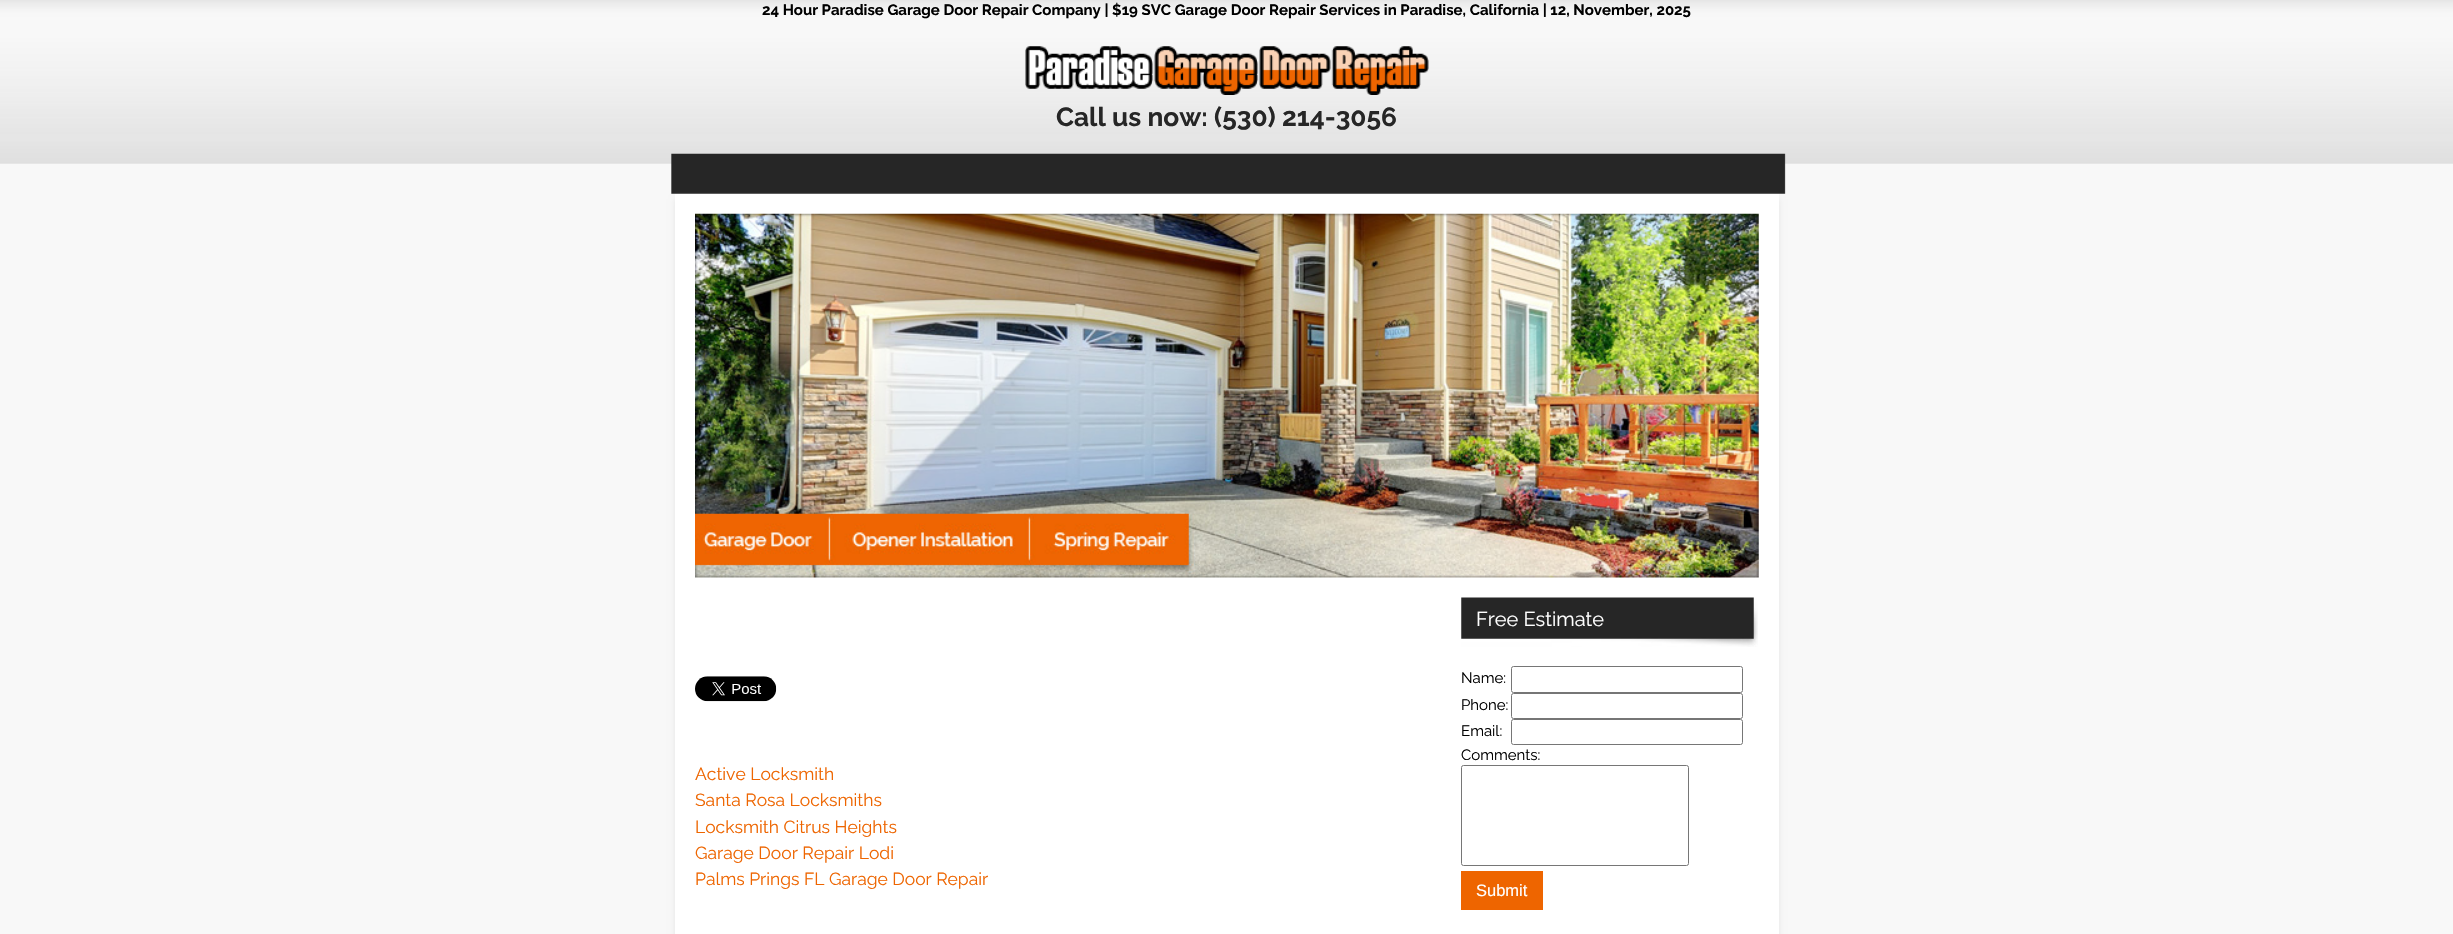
void draw(SkCanvas* canvas) {
    SkPaint paint;
    paint.setAntiAlias(true);
    canvas->clear(0xFFF8F8F8);
    canvas->drawImageRect(SkImages::DeferredFromEncodedData(SkData::MakeFromFileName("img1.png")), SkRect::MakeXYWH(0, 0, 2453, 164), SkSamplingOptions());
    SkFont font1(fontMgr->matchFamilyStyle("Raleway", SkFontStyle::Bold()), 15);
    font1.setSubpixel(true);
    paint.setColor(0xFF000000);
    canvas->drawString("24 Hour Paradise Garage Door Repair Company | $19 SVC Garage Door Repair Services in Paradise, California | 12, November, 2025", 762, 15, font1, paint);
    canvas->drawImageRect(SkImages::DeferredFromEncodedData(SkData::MakeFromFileName("img2.png")), SkRect::MakeXYWH(1025, 46, 404, 49), SkSamplingOptions());
    SkFont font2(fontMgr->matchFamilyStyle("Raleway", SkFontStyle::Bold()), 26.25f);
    font2.setSubpixel(true);
    paint.setColor(0xFF262626);
    canvas->drawString("Call us now: (530) 214-3056", 1056, 126, font2, paint);
    canvas->drawImageRect(SkImages::DeferredFromEncodedData(SkData::MakeFromFileName("img3.png")), SkRect::MakeXYWH(671, 153, 1115, 41), SkSamplingOptions());
    paint.setColor(0xFFE5E5E5);
    paint.setMaskFilter(SkMaskFilter::MakeBlur(kNormal_SkBlurStyle, 3));
    canvas->drawRect(SkRect::MakeXYWH(675, 199, 1104, 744), paint);
    paint.setMaskFilter(nullptr);
    paint.setColor(0xFFFFFFFF);
    canvas->drawRect(SkRect::MakeXYWH(675, 194, 1104, 740), paint);
    canvas->drawImageRect(SkImages::DeferredFromEncodedData(SkData::MakeFromFileName("img4.png")), SkRect::MakeXYWH(695, 213, 1064, 365), SkSamplingOptions());
    canvas->drawImageRect(SkImages::DeferredFromEncodedData(SkData::MakeFromFileName("img5.png")), SkRect::MakeXYWH(695, 676, 82, 26), SkSamplingOptions());
    SkFont font3(fontMgr->matchFamilyStyle("Raleway", SkFontStyle::Normal()), 17.5f);
    font3.setSubpixel(true);
    paint.setColor(0xFFEE6500);
    canvas->drawString("Active Locksmith", 695, 780, font3, paint);
    canvas->drawString("Santa Rosa Locksmiths", 695, 806, font3, paint);
    canvas->drawString("Locksmith Citrus Heights", 695, 833, font3, paint);
    canvas->drawString("Garage Door Repair Lodi", 695, 859, font3, paint);
    canvas->drawString("Palms Prings FL Garage Door Repair", 695, 885, font3, paint);
    canvas->drawImageRect(SkImages::DeferredFromEncodedData(SkData::MakeFromFileName("img6.png")), SkRect::MakeXYWH(1461, 597, 297, 50), SkSamplingOptions());
    SkFont font4(fontMgr->matchFamilyStyle("Raleway", SkFontStyle::Normal()), 20);
    font4.setSubpixel(true);
    paint.setColor(0xFFFFFFFF);
    canvas->drawString("Free Estimate", 1476, 626, font4, paint);
    SkFont font5(fontMgr->matchFamilyStyle("Raleway", SkFontStyle::Normal()), 15);
    font5.setSubpixel(true);
    paint.setColor(0xFF000000);
    canvas->drawString("Name:", 1461, 683, font5, paint);
    paint.setStyle(SkPaint::kStroke_Style);
    paint.setStrokeWidth(1);
    paint.setColor(0xFF767676);
    canvas->drawRoundRect(SkRect::MakeXYWH(1511.5f, 666.5f, 231, 26), 2, 2, paint);
    paint.setStyle(SkPaint::kFill_Style);
    paint.setColor(0xFF000000);
    canvas->drawString("Phone:", 1461, 710, font5, paint);
    paint.setStyle(SkPaint::kStroke_Style);
    paint.setColor(0xFF767676);
    canvas->drawRoundRect(SkRect::MakeXYWH(1511.5f, 693.5f, 231, 25), 2, 2, paint);
    paint.setStyle(SkPaint::kFill_Style);
    paint.setColor(0xFF000000);
    canvas->drawString("Email:", 1461, 736, font5, paint);
    paint.setStyle(SkPaint::kStroke_Style);
    paint.setColor(0xFF767676);
    canvas->drawRoundRect(SkRect::MakeXYWH(1511.5f, 719.5f, 231, 25), 2, 2, paint);
    paint.setStyle(SkPaint::kFill_Style);
    paint.setColor(0xFF000000);
    canvas->drawString("Comments:", 1461, 760, font5, paint);
    paint.setStyle(SkPaint::kStroke_Style);
    paint.setColor(0xFF767676);
    canvas->drawRoundRect(SkRect::MakeXYWH(1461.5f, 765.5f, 227, 100), 2, 2, paint);
    paint.setStyle(SkPaint::kFill_Style);
    paint.setColor(0xFFEE6500);
    canvas->drawRect(SkRect::MakeXYWH(1461, 871, 82, 39), paint);
    SkFont font6(fontMgr->matchFamilyStyle("Liberation Sans", SkFontStyle::Normal()), 16.5f);
    font6.setSubpixel(true);
    paint.setColor(0xFFFFFFFF);
    canvas->drawString("Submit", 1476, 896, font6, paint);
}
